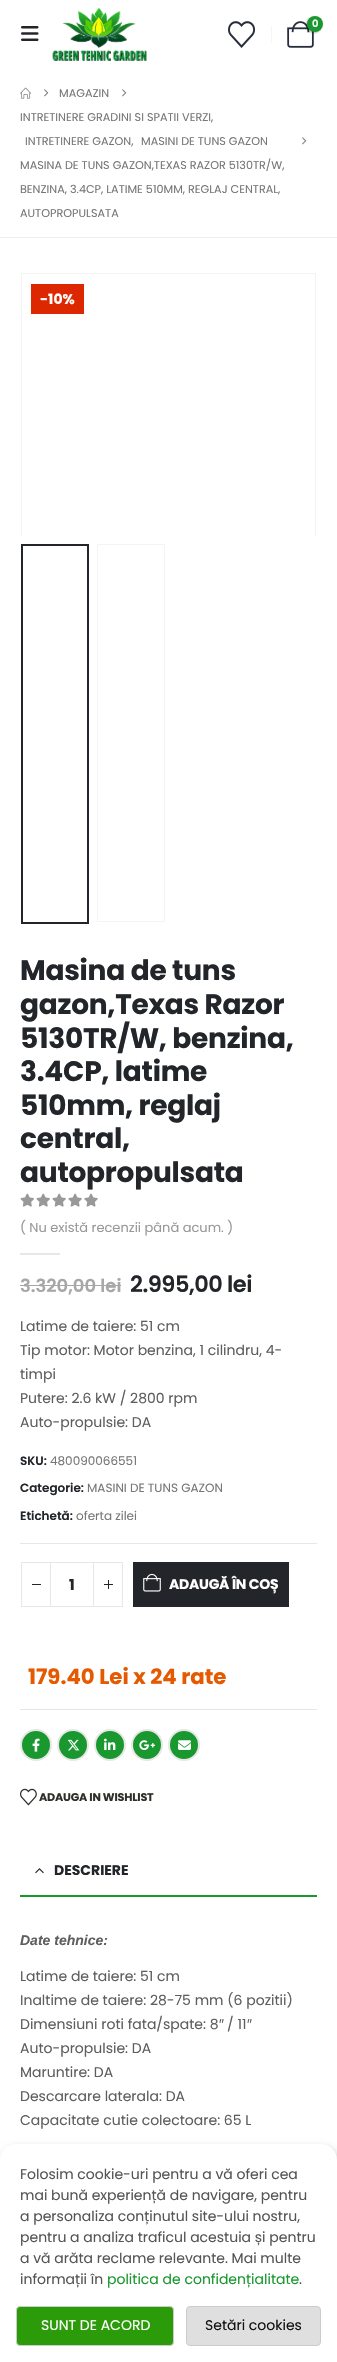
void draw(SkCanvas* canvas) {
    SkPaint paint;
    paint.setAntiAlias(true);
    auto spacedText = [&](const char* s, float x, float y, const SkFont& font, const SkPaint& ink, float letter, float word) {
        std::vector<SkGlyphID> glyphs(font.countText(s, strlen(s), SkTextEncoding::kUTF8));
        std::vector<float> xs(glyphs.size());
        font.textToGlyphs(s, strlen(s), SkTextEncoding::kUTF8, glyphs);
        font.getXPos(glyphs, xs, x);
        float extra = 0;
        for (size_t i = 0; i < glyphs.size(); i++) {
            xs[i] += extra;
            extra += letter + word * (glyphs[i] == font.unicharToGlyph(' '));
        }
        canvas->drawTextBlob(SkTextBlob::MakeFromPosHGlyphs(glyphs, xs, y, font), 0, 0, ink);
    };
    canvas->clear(0xFFFFFFFF);
    canvas->drawImageRect(SkImages::DeferredFromEncodedData(SkData::MakeFromFileName("img1.png")), SkRect::MakeXYWH(21, 26, 18, 15), SkSamplingOptions());
    canvas->drawImageRect(SkImages::DeferredFromEncodedData(SkData::MakeFromFileName("img2.png")), SkRect::MakeXYWH(52, 8, 95, 53), SkSamplingOptions());
    canvas->drawImageRect(SkImages::DeferredFromEncodedData(SkData::MakeFromFileName("img3.png")), SkRect::MakeXYWH(228, 21, 27, 27), SkSamplingOptions());
    paint.setColor(0xFFF5F5F5);
    canvas->drawRect(SkRect::MakeXYWH(271, 26, 1, 17), paint);
    canvas->drawImageRect(SkImages::DeferredFromEncodedData(SkData::MakeFromFileName("img4.png")), SkRect::MakeXYWH(287, 21, 27, 27), SkSamplingOptions());
    paint.setColor(0x4D000000);
    paint.setMaskFilter(SkMaskFilter::MakeBlur(kNormal_SkBlurStyle, 1));
    canvas->drawRoundRect(SkRect::MakeXYWH(306, 17, 16, 16), 8, 8, paint);
    paint.setMaskFilter(nullptr);
    paint.setColor(0xFF1A9830);
    canvas->drawCircle(315, 24, 8, paint);
    SkFont font1(fontMgr->matchFamilyStyle("Poppins", SkFontStyle(600, SkFontStyle::kNormal_Width, SkFontStyle::kUpright_Slant)), 10);
    font1.setSubpixel(true);
    paint.setColor(0xFFFFFFFF);
    canvas->drawString("0", 312, 27, font1, paint);
    paint.setColor(0xFFEEEEEE);
    canvas->drawRect(SkRect::MakeXYWH(0, 237, 337, 1), paint);
    canvas->drawImageRect(SkImages::DeferredFromEncodedData(SkData::MakeFromFileName("img5.png")), SkRect::MakeXYWH(20, 87, 12, 12), SkSamplingOptions());
    canvas->drawImageRect(SkImages::DeferredFromEncodedData(SkData::MakeFromFileName("img6.png")), SkRect::MakeXYWH(44, 89, 5, 8), SkSamplingOptions());
    SkFont font2(fontMgr->matchFamilyStyle("Poppins", SkFontStyle::Normal()), 11.2f);
    font2.setSubpixel(true);
    paint.setColor(0xFF777777);
    canvas->drawString("MAGAZIN", 59, 97, font2, paint);
    canvas->drawImageRect(SkImages::DeferredFromEncodedData(SkData::MakeFromFileName("img6.png")), SkRect::MakeXYWH(122, 89, 5, 8), SkSamplingOptions());
    canvas->drawString("INTRETINERE GRADINI SI SPATII VERZI,", 20, 121, font2, paint);
    canvas->drawString("INTRETINERE GAZON,", 25, 145, font2, paint);
    canvas->drawString("MASINI DE TUNS GAZON", 141, 145, font2, paint);
    canvas->drawImageRect(SkImages::DeferredFromEncodedData(SkData::MakeFromFileName("img6.png")), SkRect::MakeXYWH(302, 137, 5, 8), SkSamplingOptions());
    canvas->drawString("MASINA DE TUNS GAZON,TEXAS RAZOR 5130TR/W,", 20, 169, font2, paint);
    canvas->drawString("BENZINA, 3.4CP, LATIME 510MM, REGLAJ CENTRAL,", 20, 193, font2, paint);
    canvas->drawString("AUTOPROPULSATA", 20, 217, font2, paint);
    canvas->save();
    canvas->clipRect(SkRect::MakeXYWH(20, 273, 297, 263));
    paint.setStyle(SkPaint::kStroke_Style);
    paint.setStrokeWidth(1);
    paint.setColor(0xFFF4F4F4);
    canvas->drawRect(SkRect::MakeXYWH(21.5f, 273.5f, 294, 263), paint);
    canvas->restore();
    paint.setStrokeWidth(2);
    paint.setColor(0xFF222529);
    canvas->drawRect(SkRect::MakeXYWH(22, 545, 66, 378), paint);
    paint.setStrokeWidth(1);
    paint.setColor(0xFFF4F4F4);
    canvas->drawRect(SkRect::MakeXYWH(97.5f, 544.5f, 67, 377), paint);
    paint.setStyle(SkPaint::kFill_Style);
    paint.setColor(0xFFDD2700);
    canvas->drawRect(SkRect::MakeXYWH(31, 284, 53, 30), paint);
    SkFont font3(fontMgr->matchFamilyStyle("Poppins", SkFontStyle::Bold()), 14);
    font3.setSubpixel(true);
    paint.setColor(0xFFFFFFFF);
    canvas->drawString("-10%", 40, 304, font3, paint);
    SkFont font4(fontMgr->matchFamilyStyle("Poppins", SkFontStyle::Bold()), 28);
    font4.setSubpixel(true);
    paint.setColor(0xFF222529);
    spacedText("Masina de tuns", 20, 980, font4, paint, -0.25f, 0);
    spacedText("gazon,Texas Razor", 20, 1014, font4, paint, -0.25f, 0);
    spacedText("5130TR/W, benzina,", 20, 1048, font4, paint, -0.25f, 0);
    spacedText("3.4CP, latime", 20, 1081, font4, paint, -0.25f, 0);
    spacedText("510mm, reglaj", 20, 1115, font4, paint, -0.25f, 0);
    spacedText("central,", 20, 1148, font4, paint, -0.25f, 0);
    spacedText("autopropulsata", 20, 1182, font4, paint, -0.25f, 0);
    canvas->drawImageRect(SkImages::DeferredFromEncodedData(SkData::MakeFromFileName("img7.png")), SkRect::MakeXYWH(20, 1193, 78, 14), SkSamplingOptions());
    SkFont font5(fontMgr->matchFamilyStyle("Poppins", SkFontStyle::Normal()), 13);
    font5.setSubpixel(true);
    paint.setColor(0xFF999999);
    canvas->drawString("( Nu există recenzii până acum. )", 20, 1232, font5, paint);
    paint.setColor(0xFFE7E7E7);
    canvas->drawRect(SkRect::MakeXYWH(20, 1253, 40, 2), paint);
    SkFont font6(fontMgr->matchFamilyStyle("Poppins", SkFontStyle(600, SkFontStyle::kNormal_Width, SkFontStyle::kUpright_Slant)), 18);
    font6.setSubpixel(true);
    paint.setColor(0xFFA7A7A7);
    canvas->drawString("3.320,00 lei", 20, 1292, font6, paint);
    canvas->drawRect(SkRect::MakeXYWH(20, 1285, 101, 1), paint);
    SkFont font7(fontMgr->matchFamilyStyle("Poppins", SkFontStyle(600, SkFontStyle::kNormal_Width, SkFontStyle::kUpright_Slant)), 22.5f);
    font7.setSubpixel(true);
    paint.setColor(0xFF222529);
    spacedText("2.995,00 lei", 130, 1292, font7, paint, -0.5f, 0);
    SkFont font8(fontMgr->matchFamilyStyle("Poppins", SkFontStyle::Normal()), 14);
    font8.setSubpixel(true);
    paint.setColor(0xFF5E5E5E);
    canvas->drawString("Latime de taiere: 51 cm", 20, 1331, font8, paint);
    canvas->drawString("Tip motor: Motor benzina, 1 cilindru, 4-", 20, 1355, font8, paint);
    canvas->drawString("timpi", 20, 1379, font8, paint);
    canvas->drawString("Putere: 2.6 kW / 2800 rpm", 20, 1403, font8, paint);
    canvas->drawString("Auto-propulsie: DA", 20, 1427, font8, paint);
    SkFont font9(fontMgr->matchFamilyStyle("Poppins", SkFontStyle(600, SkFontStyle::kNormal_Width, SkFontStyle::kUpright_Slant)), 12);
    font9.setSubpixel(true);
    paint.setColor(0xFF222529);
    canvas->drawString("SKU:", 20, 1465, font9, paint);
    SkFont font10(fontMgr->matchFamilyStyle("Poppins", SkFontStyle::Normal()), 12);
    font10.setSubpixel(true);
    paint.setColor(0xFF777777);
    canvas->drawString("480090066551", 50, 1465, font10, paint);
    paint.setColor(0xFF222529);
    canvas->drawString("Categorie:", 20, 1492, font9, paint);
    paint.setColor(0xFF777777);
    canvas->drawString("MASINI DE TUNS GAZON", 87, 1492, font10, paint);
    paint.setColor(0xFF222529);
    canvas->drawString("Etichetă:", 20, 1520, font9, paint);
    paint.setColor(0xFF777777);
    canvas->drawString("oferta zilei", 76, 1520, font10, paint);
    paint.setColor(0xFFE7E7E7);
    canvas->drawRect(SkRect::MakeXYWH(20, 1543, 297, 1), paint);
    canvas->drawRect(SkRect::MakeXYWH(20, 1709, 297, 1), paint);
    canvas->drawRect(SkRect::MakeXYWH(50, 1562, 44, 1), paint);
    canvas->drawRect(SkRect::MakeXYWH(50, 1606, 44, 1), paint);
    paint.setStyle(SkPaint::kStroke_Style);
    canvas->drawRect(SkRect::MakeXYWH(21.5f, 1562.5f, 29, 44), paint);
    paint.setStyle(SkPaint::kFill_Style);
    paint.setColor(0xFF222529);
    canvas->drawRect(SkRect::MakeXYWH(32, 1584, 9, 1), paint);
    SkFont font11(fontMgr->matchFamilyStyle("Poppins", SkFontStyle::Bold()), 15);
    font11.setSubpixel(true);
    canvas->drawString("1", 69, 1590, font11, paint);
    paint.setStyle(SkPaint::kStroke_Style);
    paint.setColor(0xFFE7E7E7);
    canvas->drawRect(SkRect::MakeXYWH(93.5f, 1562.5f, 29, 44), paint);
    paint.setStyle(SkPaint::kFill_Style);
    paint.setColor(0xFF222529);
    canvas->drawRect(SkRect::MakeXYWH(104, 1584, 9, 1), paint);
    canvas->drawRect(SkRect::MakeXYWH(108, 1580, 1, 9), paint);
    canvas->drawRect(SkRect::MakeXYWH(133, 1562, 156, 45), paint);
    canvas->drawImageRect(SkImages::DeferredFromEncodedData(SkData::MakeFromFileName("img8.png")), SkRect::MakeXYWH(143, 1573, 18, 19), SkSamplingOptions());
    paint.setColor(0xFFFFFFFF);
    spacedText("ADAUGĂ ÎN COȘ", 169, 1589, font3, paint, -0.25f, 0);
    SkFont font12(fontMgr->matchFamilyStyle("Poppins", SkFontStyle::Bold()), 21.25f);
    font12.setSubpixel(true);
    paint.setColor(0xFFE55A00);
    canvas->drawString("179.40 Lei x 24 rate", 28, 1684, font12, paint);
    paint.setColor(0xFF1A9830);
    canvas->drawCircle(36, 1745, 15, paint);
    paint.setStyle(SkPaint::kStroke_Style);
    paint.setStrokeWidth(2);
    paint.setColor(0xFFE7E7E7);
    canvas->drawCircle(36, 1745, 15, paint);
    canvas->drawImageRect(SkImages::DeferredFromEncodedData(SkData::MakeFromFileName("img9.png")), SkRect::MakeXYWH(32, 1738, 8, 14), SkSamplingOptions());
    paint.setStyle(SkPaint::kFill_Style);
    paint.setColor(0xFF1A9830);
    canvas->drawCircle(73, 1745, 15, paint);
    paint.setStyle(SkPaint::kStroke_Style);
    paint.setColor(0xFFE7E7E7);
    canvas->drawCircle(73, 1745, 15, paint);
    canvas->drawImageRect(SkImages::DeferredFromEncodedData(SkData::MakeFromFileName("img10.png")), SkRect::MakeXYWH(67, 1739, 13, 12), SkSamplingOptions());
    paint.setStyle(SkPaint::kFill_Style);
    paint.setColor(0xFF1A9830);
    canvas->drawCircle(110, 1745, 15, paint);
    paint.setStyle(SkPaint::kStroke_Style);
    paint.setColor(0xFFE7E7E7);
    canvas->drawCircle(110, 1745, 15, paint);
    canvas->drawImageRect(SkImages::DeferredFromEncodedData(SkData::MakeFromFileName("img11.png")), SkRect::MakeXYWH(104, 1738, 12, 12), SkSamplingOptions());
    paint.setStyle(SkPaint::kFill_Style);
    paint.setColor(0xFF1A9830);
    canvas->drawCircle(147, 1745, 15, paint);
    paint.setStyle(SkPaint::kStroke_Style);
    paint.setColor(0xFFE7E7E7);
    canvas->drawCircle(147, 1745, 15, paint);
    canvas->drawImageRect(SkImages::DeferredFromEncodedData(SkData::MakeFromFileName("img12.png")), SkRect::MakeXYWH(139, 1740, 16, 10), SkSamplingOptions());
    paint.setStyle(SkPaint::kFill_Style);
    paint.setColor(0xFF1A9830);
    canvas->drawCircle(184, 1745, 15, paint);
    paint.setStyle(SkPaint::kStroke_Style);
    paint.setColor(0xFFE7E7E7);
    canvas->drawCircle(184, 1745, 15, paint);
    canvas->drawImageRect(SkImages::DeferredFromEncodedData(SkData::MakeFromFileName("img13.png")), SkRect::MakeXYWH(178, 1740, 13, 10), SkSamplingOptions());
    canvas->drawImageRect(SkImages::DeferredFromEncodedData(SkData::MakeFromFileName("img14.png")), SkRect::MakeXYWH(20, 1788, 17, 18), SkSamplingOptions());
    SkFont font13(fontMgr->matchFamilyStyle("Poppins", SkFontStyle::Bold()), 11.2f);
    font13.setSubpixel(true);
    paint.setStyle(SkPaint::kFill_Style);
    paint.setColor(0xFF302E2A);
    spacedText("ADAUGA IN WISHLIST", 39, 1801, font13, paint, -0.2f, 0);
    paint.setColor(0xFF1A9830);
    canvas->drawRect(SkRect::MakeXYWH(20, 1895, 297, 2), paint);
    canvas->drawImageRect(SkImages::DeferredFromEncodedData(SkData::MakeFromFileName("img15.png")), SkRect::MakeXYWH(35, 1868, 9, 6), SkSamplingOptions());
    paint.setColor(0xFF222529);
    canvas->drawString("DESCRIERE", 54, 1875, font3, paint);
    SkFont font14(fontMgr->matchFamilyStyle("Liberation Sans", SkFontStyle::BoldItalic()), 14);
    font14.setSubpixel(true);
    paint.setColor(0xFF5E5E5E);
    canvas->drawString("Date tehnice:", 20, 1945, font14, paint);
    canvas->drawString("Latime de taiere: 51 cm", 20, 1981, font8, paint);
    canvas->drawString("Inaltime de taiere: 28-75 mm (6 pozitii)", 20, 2005, font8, paint);
    canvas->drawString("Dimensiuni roti fata/spate: 8", 20, 2029, font8, paint);
    SkFont font15(fontMgr->matchFamilyStyle("Liberation Sans", SkFontStyle::Normal()), 14);
    font15.setSubpixel(true);
    canvas->drawString("″", 219, 2029, font15, paint);
    canvas->drawString("/ 11", 227, 2029, font8, paint);
    canvas->drawString("″", 247, 2029, font15, paint);
    canvas->drawString("Auto-propulsie: DA", 20, 2053, font8, paint);
    canvas->drawString("Maruntire: DA", 20, 2077, font8, paint);
    canvas->drawString("Descarcare laterala: DA", 20, 2101, font8, paint);
    canvas->drawString("Capacitate cutie colectoare: 65 L", 20, 2125, font8, paint);
    paint.setColor(0x33000000);
    paint.setMaskFilter(SkMaskFilter::MakeBlur(kNormal_SkBlurStyle, 3.5f));
    canvas->drawRoundRect(SkRect::MakeXYWH(2, 2147, 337, 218), 16, 16, paint);
    paint.setMaskFilter(nullptr);
    paint.setColor(0xFFFFFFFF);
    canvas->drawPath(SkPathBuilder().moveTo(16, 2144).lineTo(321, 2144).cubicTo(330, 2144, 337, 2151, 337, 2160).lineTo(337, 2362).lineTo(0, 2362).lineTo(0, 2160).cubicTo(0, 2151, 7, 2144, 16, 2144).close().detach(), paint);
    paint.setColor(0xFF555555);
    canvas->drawString("Folosim cookie-uri pentru a vă oferi cea", 20, 2179, font8, paint);
    canvas->drawString("mai bună experiență de navigare, pentru", 20, 2200, font8, paint);
    canvas->drawString("a personaliza conținutul site-ului nostru,", 20, 2221, font8, paint);
    canvas->drawString("pentru a analiza traficul acestuia și pentru", 20, 2242, font8, paint);
    canvas->drawString("a vă arăta reclame relevante. Mai multe", 20, 2263, font8, paint);
    canvas->drawString("informații în", 20, 2284, font8, paint);
    paint.setColor(0xFF1A9830);
    canvas->drawString("politica de confidențialitate", 107, 2284, font8, paint);
    paint.setColor(0xFF555555);
    canvas->drawString(".", 299, 2284, font8, paint);
    paint.setColor(0xFF2C9B0A);
    canvas->drawRoundRect(SkRect::MakeXYWH(16.5f, 2306.5f, 157, 39), 3.5f, 3.5f, paint);
    paint.setStyle(SkPaint::kStroke_Style);
    paint.setStrokeWidth(1);
    paint.setColor(0xFFCCCCCC);
    canvas->drawRoundRect(SkRect::MakeXYWH(16.5f, 2306.5f, 157, 39), 3.5f, 3.5f, paint);
    paint.setStyle(SkPaint::kFill_Style);
    paint.setColor(0xFFFFFFFF);
    canvas->drawString("SUNT DE ACORD", 41, 2330, font8, paint);
    paint.setColor(0xFFDFDFDF);
    canvas->drawRoundRect(SkRect::MakeXYWH(186.5f, 2306.5f, 134, 39), 3.5f, 3.5f, paint);
    paint.setStyle(SkPaint::kStroke_Style);
    paint.setColor(0xFFCCCCCC);
    canvas->drawRoundRect(SkRect::MakeXYWH(186.5f, 2306.5f, 134, 39), 3.5f, 3.5f, paint);
    paint.setStyle(SkPaint::kFill_Style);
    paint.setColor(0xFF111111);
    canvas->drawString("Setări cookies", 205, 2330, font8, paint);
}
